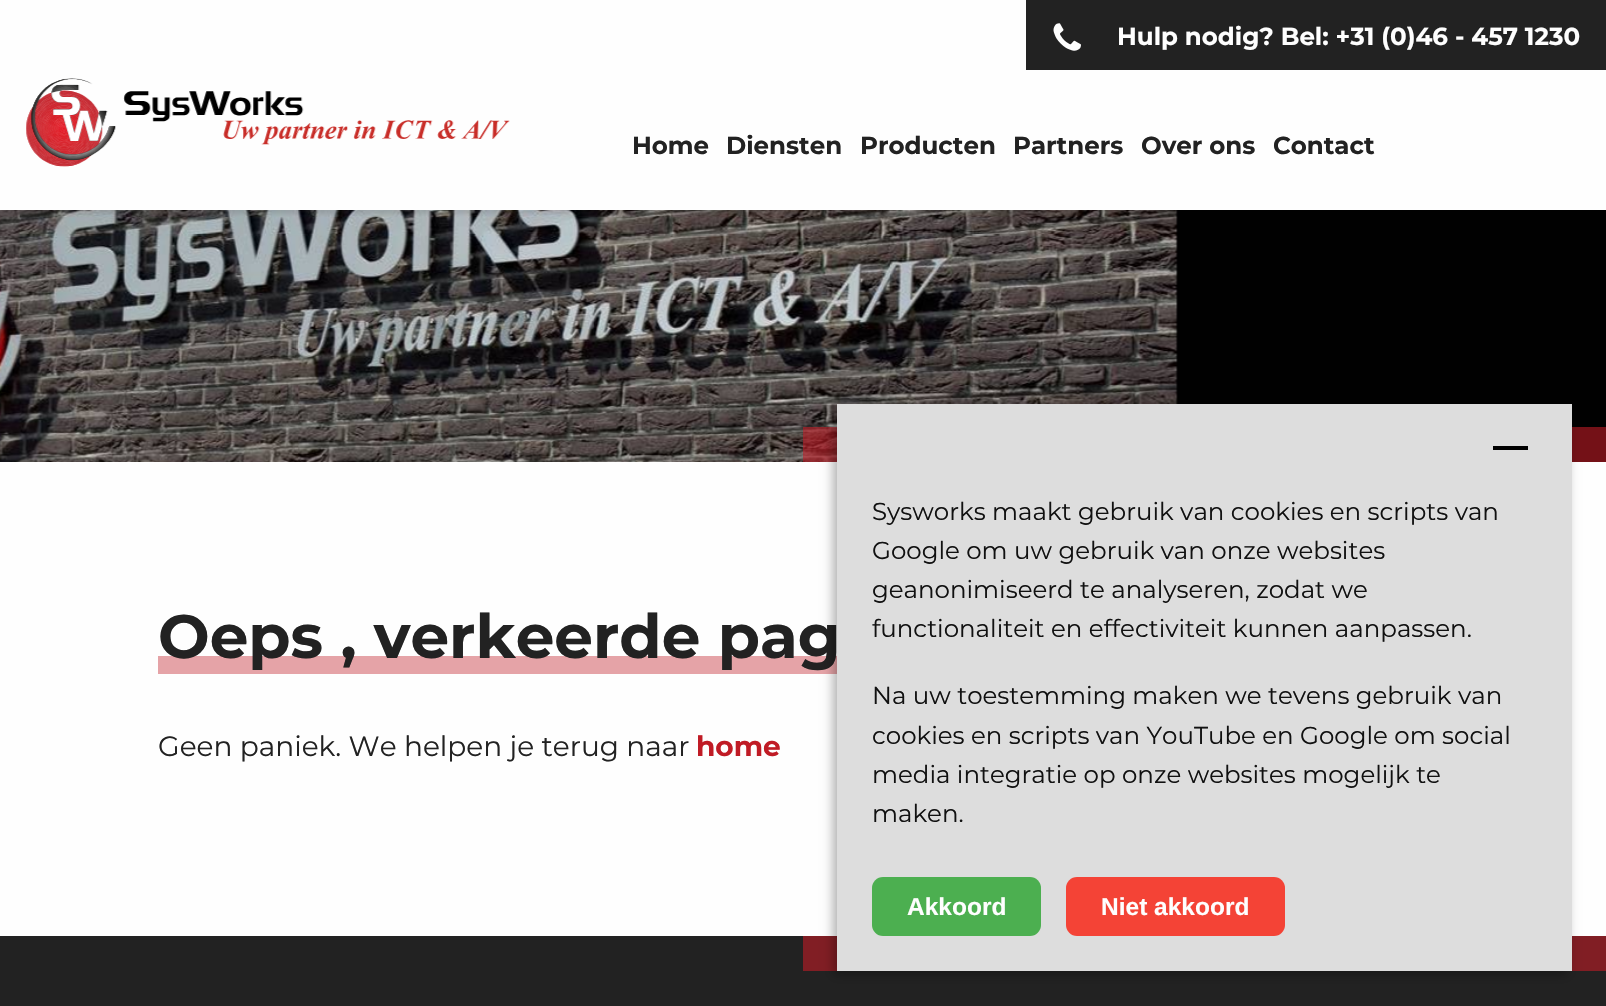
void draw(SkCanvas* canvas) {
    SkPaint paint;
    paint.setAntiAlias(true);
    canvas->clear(0xFF222222);
    canvas->drawImageRect(SkImages::DeferredFromEncodedData(SkData::MakeFromFileName("img3.png")), SkRect::MakeXYWH(0, 210, 1606, 252), SkSamplingOptions());
    paint.setColor(0x1A000000);
    paint.setMaskFilter(SkMaskFilter::MakeBlur(kNormal_SkBlurStyle, 2));
    canvas->drawRect(SkRect::MakeXYWH(0, 4, 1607, 210), paint);
    paint.setMaskFilter(nullptr);
    paint.setColor(0xFFFEFEFE);
    canvas->drawRect(SkRect::MakeXYWH(0, 0, 1606, 210), paint);
    paint.setColor(0xFF222222);
    canvas->drawRect(SkRect::MakeXYWH(1026, 0, 580, 70), paint);
    canvas->drawImageRect(SkImages::DeferredFromEncodedData(SkData::MakeFromFileName("img1.png")), SkRect::MakeXYWH(1053, 23, 28, 28), SkSamplingOptions());
    SkFont font1(fontMgr->matchFamilyStyle("Montserrat", SkFontStyle::Bold()), 24.5f);
    font1.setSubpixel(true);
    paint.setColor(0xFFFEFEFE);
    canvas->drawString("Hulp nodig? Bel: +31 (0)46 - 457 1230", 1117, 45, font1, paint);
    canvas->drawImageRect(SkImages::DeferredFromEncodedData(SkData::MakeFromFileName("img2.png")), SkRect::MakeXYWH(26, 78, 484, 89), SkSamplingOptions());
    paint.setColor(0xFF222222);
    canvas->drawString("Home", 632, 154, font1, paint);
    canvas->drawString("Diensten", 726, 154, font1, paint);
    canvas->drawString("Producten", 860, 154, font1, paint);
    canvas->drawString("Partners", 1013, 154, font1, paint);
    canvas->drawString("Over ons", 1141, 154, font1, paint);
    canvas->drawString("Contact", 1273, 154, font1, paint);
    paint.setColor(0x99C01B25);
    canvas->drawRect(SkRect::MakeXYWH(803, 427, 803, 544), paint);
    paint.setColor(0xFFFEFEFE);
    canvas->drawRect(SkRect::MakeXYWH(0, 462, 1606, 474), paint);
    paint.setColor(0xFFE5A3A7);
    canvas->drawRect(SkRect::MakeXYWH(158, 656, 679, 18), paint);
    SkFont font2(fontMgr->matchFamilyStyle("Montserrat", SkFontStyle::Bold()), 61.25f);
    font2.setSubpixel(true);
    paint.setColor(0xFF222222);
    canvas->drawString("Oeps , verkeerde pag", 158, 658, font2, paint);
    SkFont font3(fontMgr->matchFamilyStyle("Montserrat", SkFontStyle::Normal()), 28);
    font3.setSubpixel(true);
    canvas->drawString("Geen paniek. We helpen je terug naar", 158, 756, font3, paint);
    SkFont font4(fontMgr->matchFamilyStyle("Montserrat", SkFontStyle::Bold()), 28);
    font4.setSubpixel(true);
    paint.setColor(0xFFC01B25);
    canvas->drawString("home", 696, 756, font4, paint);
    paint.setColor(0x4D000000);
    paint.setMaskFilter(SkMaskFilter::MakeBlur(kNormal_SkBlurStyle, 5));
    canvas->drawRect(SkRect::MakeXYWH(833, 408, 735, 567), paint);
    paint.setMaskFilter(nullptr);
    paint.setColor(0xFFDDDDDD);
    canvas->drawRect(SkRect::MakeXYWH(837, 404, 735, 567), paint);
    paint.setColor(0xFF000000);
    canvas->drawRect(SkRect::MakeXYWH(1493, 446, 35, 4), paint);
    SkFont font5(fontMgr->matchFamilyStyle("Montserrat", SkFontStyle::Normal()), 24.5f);
    font5.setSubpixel(true);
    paint.setColor(0xFF111111);
    canvas->drawString("Sysworks maakt gebruik van cookies en scripts van", 872, 520, font5, paint);
    canvas->drawString("Google om uw gebruik van onze websites", 872, 559, font5, paint);
    canvas->drawString("geanonimiseerd te analyseren, zodat we", 872, 598, font5, paint);
    canvas->drawString("functionaliteit en effectiviteit kunnen aanpassen.", 872, 637, font5, paint);
    canvas->drawString("Na uw toestemming maken we tevens gebruik van", 872, 704, font5, paint);
    canvas->drawString("cookies en scripts van YouTube en Google om social", 872, 744, font5, paint);
    canvas->drawString("media integratie op onze websites mogelijk te", 872, 783, font5, paint);
    canvas->drawString("maken.", 872, 822, font5, paint);
    paint.setColor(0xFF4CAF50);
    canvas->drawRoundRect(SkRect::MakeXYWH(872, 877, 169, 59), 11, 11, paint);
    SkFont font6(fontMgr->matchFamilyStyle("Liberation Sans", SkFontStyle::Bold()), 24.5f);
    font6.setSubpixel(true);
    paint.setColor(0xFFFEFEFE);
    canvas->drawString("Akkoord", 907, 915, font6, paint);
    paint.setColor(0xFFF44336);
    canvas->drawRoundRect(SkRect::MakeXYWH(1066, 877, 219, 59), 11, 11, paint);
    paint.setColor(0xFFFEFEFE);
    canvas->drawString("Niet akkoord", 1101, 915, font6, paint);
}
